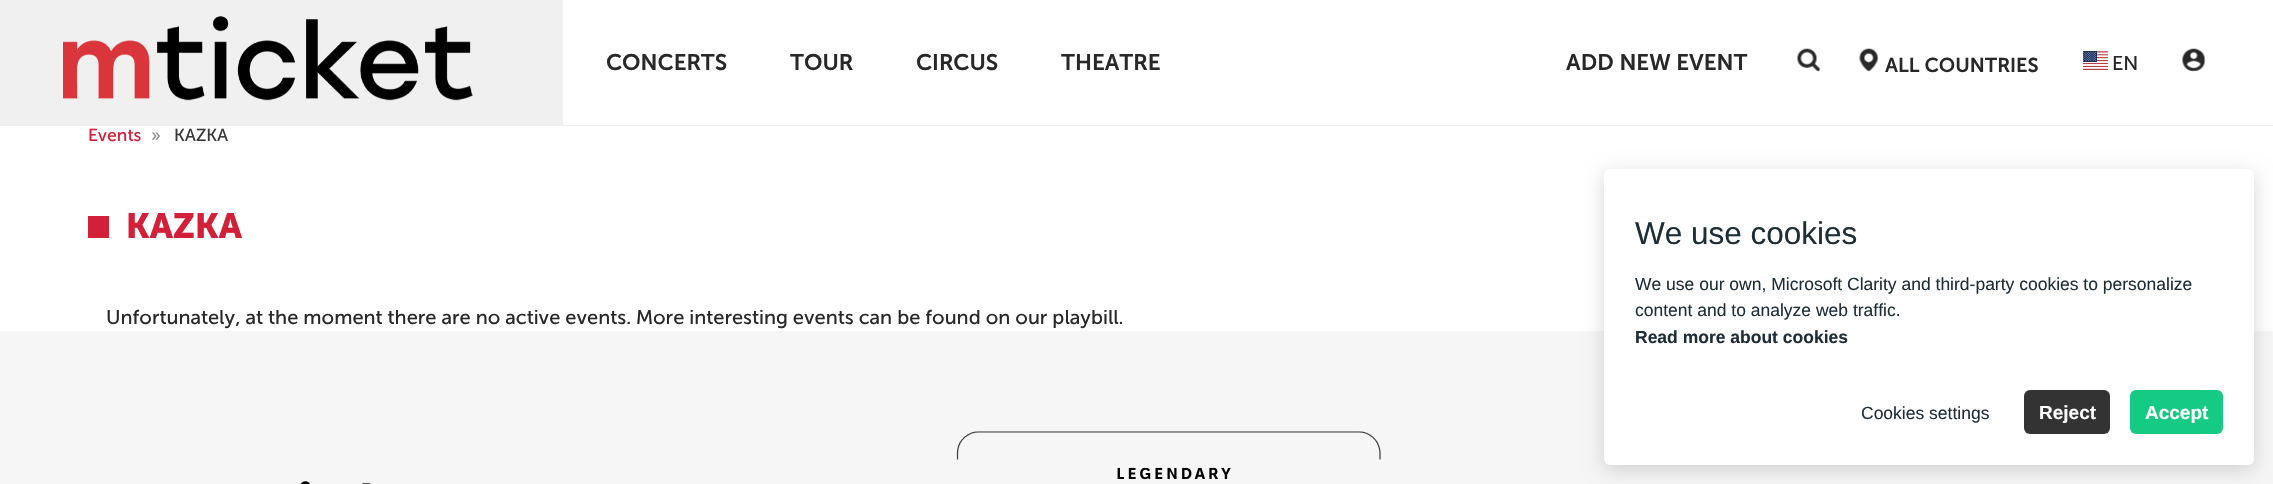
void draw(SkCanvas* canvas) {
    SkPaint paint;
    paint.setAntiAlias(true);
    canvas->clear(0xFFFFFFFF);
    paint.setColor(0xFFF0F0F0);
    canvas->drawRect(SkRect::MakeXYWH(0, 125, 2273, 1), paint);
    canvas->drawRect(SkRect::MakeXYWH(0, 0, 563, 125), paint);
    canvas->drawImageRect(SkImages::DeferredFromEncodedData(SkData::MakeFromFileName("img1.png")), SkRect::MakeXYWH(63, 16, 410, 85), SkSamplingOptions());
    SkFont font1(fontMgr->matchFamilyStyle("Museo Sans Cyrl", SkFontStyle(600, SkFontStyle::kNormal_Width, SkFontStyle::kUpright_Slant)), 22.5f);
    font1.setSubpixel(true);
    paint.setColor(0xFF282828);
    canvas->drawString("CONCERTS", 606, 70, font1, paint);
    canvas->drawString("TOUR", 790, 70, font1, paint);
    canvas->drawString("CIRCUS", 916, 70, font1, paint);
    canvas->drawString("THEATRE", 1061, 70, font1, paint);
    canvas->drawString("ADD NEW EVENT", 1566, 70, font1, paint);
    canvas->drawImageRect(SkImages::DeferredFromEncodedData(SkData::MakeFromFileName("img2.png")), SkRect::MakeXYWH(1797, 48, 24, 24), SkSamplingOptions());
    canvas->drawImageRect(SkImages::DeferredFromEncodedData(SkData::MakeFromFileName("img3.png")), SkRect::MakeXYWH(1859, 48, 20, 24), SkSamplingOptions());
    SkFont font2(fontMgr->matchFamilyStyle("Museo Sans Cyrl", SkFontStyle(600, SkFontStyle::kNormal_Width, SkFontStyle::kUpright_Slant)), 20);
    font2.setSubpixel(true);
    canvas->drawString("ALL COUNTRIES", 1885, 72, font2, paint);
    canvas->drawImageRect(SkImages::DeferredFromEncodedData(SkData::MakeFromFileName("img4.png")), SkRect::MakeXYWH(2083, 51, 25, 19), SkSamplingOptions());
    SkFont font3(fontMgr->matchFamilyStyle("Museo Sans Cyrl", SkFontStyle::Normal()), 20);
    font3.setSubpixel(true);
    canvas->drawString("EN", 2112, 70, font3, paint);
    canvas->drawImageRect(SkImages::DeferredFromEncodedData(SkData::MakeFromFileName("img5.png")), SkRect::MakeXYWH(2182, 48, 24, 24), SkSamplingOptions());
    SkFont font4(fontMgr->matchFamilyStyle("Museo Sans Cyrl", SkFontStyle::Normal()), 17.5f);
    font4.setSubpixel(true);
    paint.setColor(0xFFD31F37);
    canvas->drawString("Events", 88, 141, font4, paint);
    paint.setColor(0xFF8C8C8C);
    canvas->drawString("»", 151, 141, font4, paint);
    paint.setColor(0xFF383838);
    canvas->drawString("KAZKA", 174, 141, font4, paint);
    paint.setColor(0xFFD31F37);
    canvas->drawRect(SkRect::MakeXYWH(88, 216, 21, 22), paint);
    SkFont font5(fontMgr->matchFamilyStyle("Museo Sans Cyrl", SkFontStyle::Bold()), 35);
    font5.setSubpixel(true);
    canvas->drawString("KAZKA", 126, 238, font5, paint);
    paint.setColor(0xFF282828);
    canvas->drawString("Unfortunately, at the moment there are no active events. More interesting events can be found on our playbill.", 106, 324, font3, paint);
    paint.setColor(0xFFF6F6F6);
    canvas->drawRect(SkRect::MakeXYWH(0, 331, 2273, 153), paint);
    paint.setColor(0x29000000);
    paint.setMaskFilter(SkMaskFilter::MakeBlur(kNormal_SkBlurStyle, 10));
    canvas->drawRoundRect(SkRect::MakeXYWH(1604, 174, 650, 296), 6, 6, paint);
    paint.setMaskFilter(nullptr);
    paint.setColor(0xFFFFFFFF);
    canvas->drawRoundRect(SkRect::MakeXYWH(1604, 169, 650, 296), 6, 6, paint);
    SkFont font6(fontMgr->matchFamilyStyle("Liberation Sans", SkFontStyle::Normal()), 31.5f);
    font6.setSubpixel(true);
    paint.setColor(0xFF1D2E38);
    canvas->drawString("We use cookies", 1635, 244, font6, paint);
    SkFont font7(fontMgr->matchFamilyStyle("Liberation Sans", SkFontStyle::Normal()), 17.5f);
    font7.setSubpixel(true);
    canvas->drawString("We use our own, Microsoft Clarity and third-party cookies to personalize", 1635, 290, font7, paint);
    canvas->drawString("content and to analyze web traffic.", 1635, 316, font7, paint);
    SkFont font8(fontMgr->matchFamilyStyle("Liberation Sans", SkFontStyle::Bold()), 17.5f);
    font8.setSubpixel(true);
    canvas->drawString("Read more about cookies", 1635, 343, font8, paint);
    canvas->drawString("Cookies settings", 1861, 419, font7, paint);
    paint.setColor(0xFF333333);
    canvas->drawRoundRect(SkRect::MakeXYWH(2024, 390, 86, 44), 6, 6, paint);
    SkFont font9(fontMgr->matchFamilyStyle("Liberation Sans", SkFontStyle::Bold()), 19);
    font9.setSubpixel(true);
    paint.setColor(0xFFFFFFFF);
    canvas->drawString("Reject", 2039, 419, font9, paint);
    paint.setColor(0xFF15CB84);
    canvas->drawRoundRect(SkRect::MakeXYWH(2130, 390, 93, 44), 6, 6, paint);
    paint.setColor(0xFFFFFFFF);
    canvas->drawString("Accept", 2145, 419, font9, paint);
    canvas->drawImageRect(SkImages::DeferredFromEncodedData(SkData::MakeFromFileName("img6.png")), SkRect::MakeXYWH(956, 431, 425, 49), SkSamplingOptions());
    canvas->drawImageRect(SkImages::DeferredFromEncodedData(SkData::MakeFromFileName("img7.png")), SkRect::MakeXYWH(300, 481, 71, 3), SkSamplingOptions());
}
